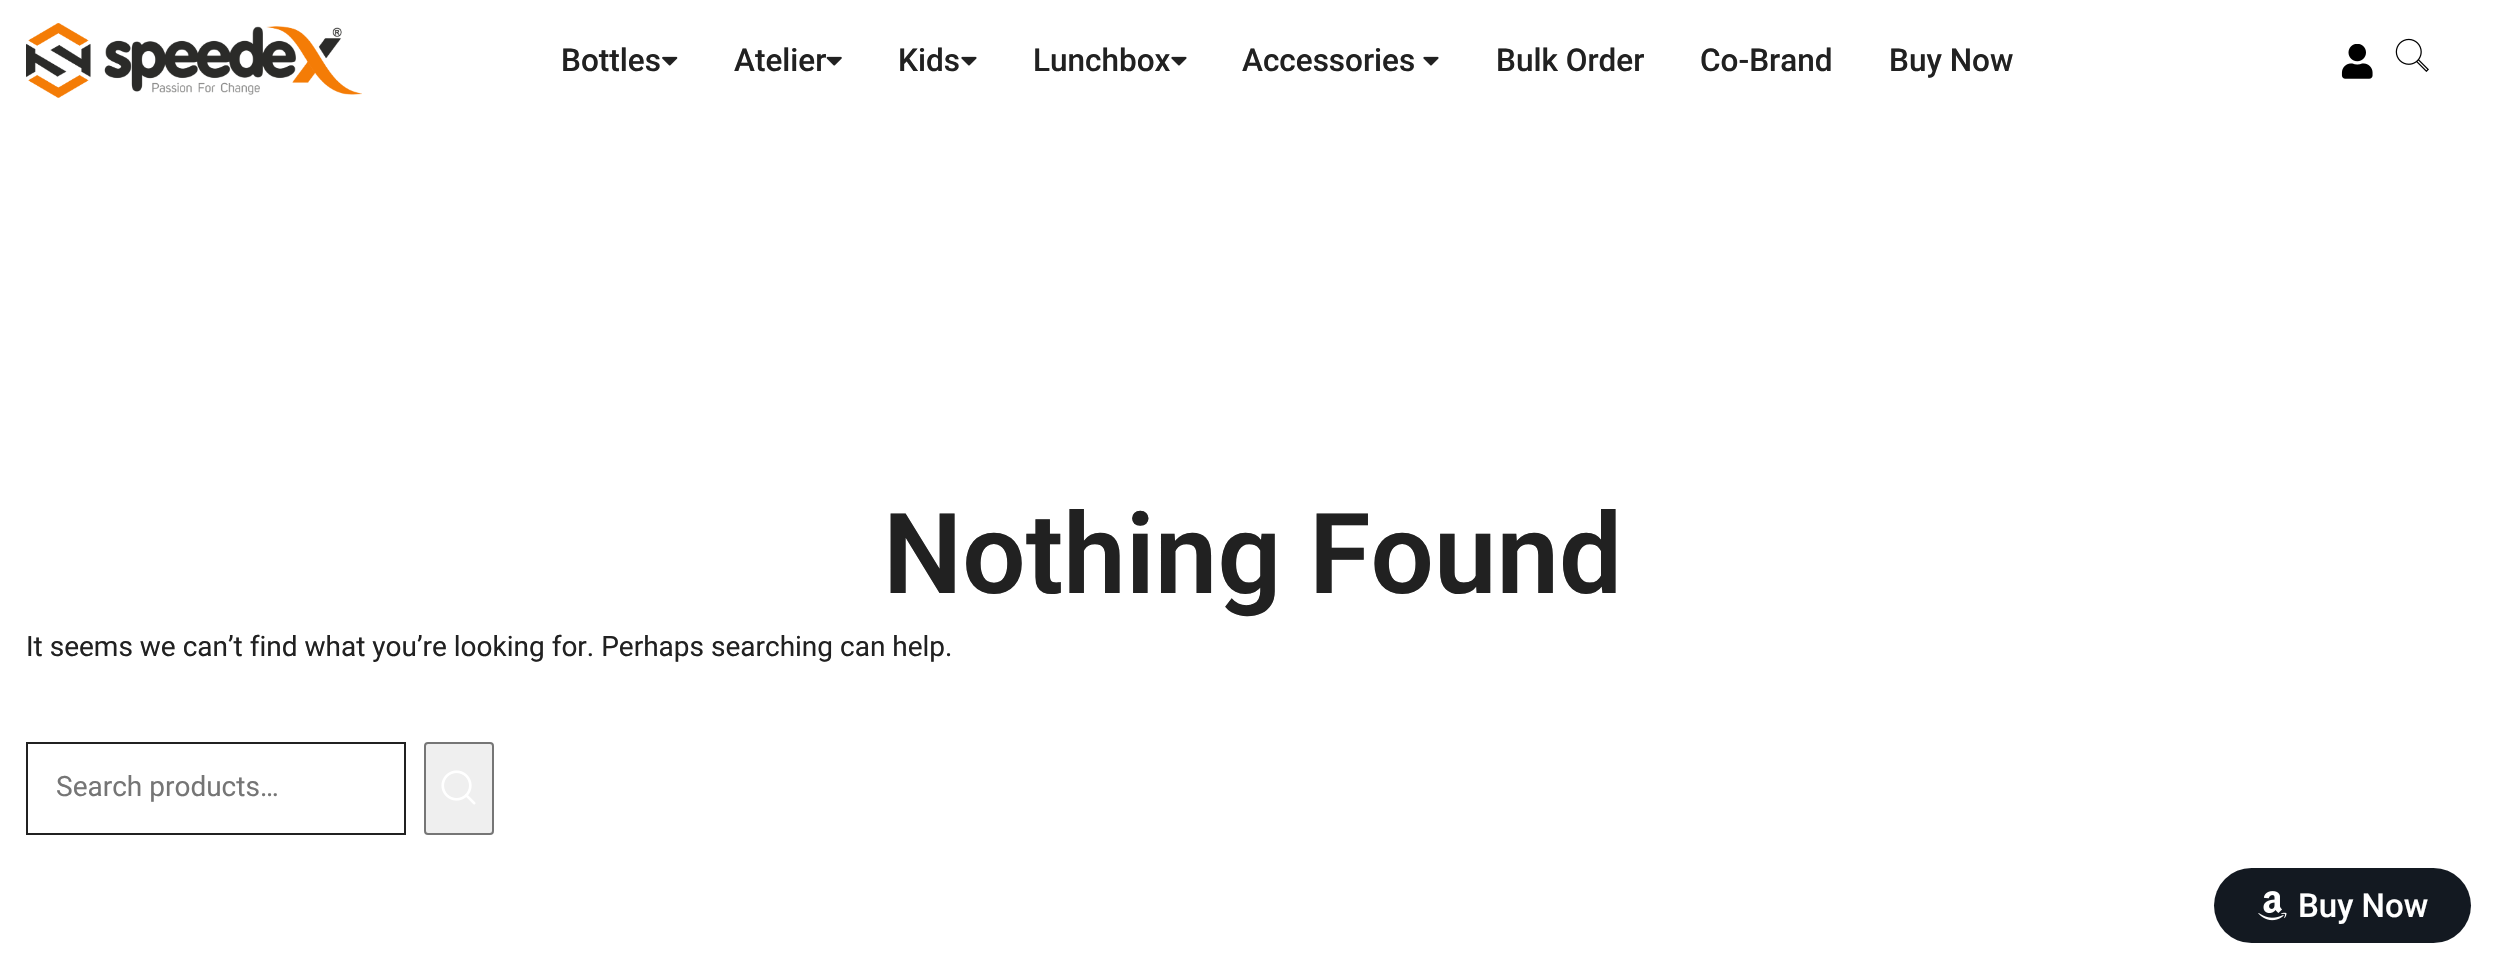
void draw(SkCanvas* canvas) {
    SkPaint paint;
    paint.setAntiAlias(true);
    canvas->clear(0xFFFFFFFF);
    canvas->drawImageRect(SkImages::DeferredFromEncodedData(SkData::MakeFromFileName("img1.png")), SkRect::MakeXYWH(26, 23, 336, 75), SkSamplingOptions());
    SkFont font1(fontMgr->matchFamilyStyle("Roboto", SkFontStyle(500, SkFontStyle::kNormal_Width, SkFontStyle::kUpright_Slant)), 31.5f);
    font1.setSubpixel(true);
    paint.setColor(0xFF212121);
    canvas->drawString("Bottles", 561, 71, font1, paint);
    canvas->drawImageRect(SkImages::DeferredFromEncodedData(SkData::MakeFromFileName("img2.png")), SkRect::MakeXYWH(662, 56, 16, 10), SkSamplingOptions());
    canvas->drawString("Atelier", 734, 71, font1, paint);
    canvas->drawImageRect(SkImages::DeferredFromEncodedData(SkData::MakeFromFileName("img3.png")), SkRect::MakeXYWH(826, 56, 16, 10), SkSamplingOptions());
    canvas->drawString("Kids", 898, 71, font1, paint);
    canvas->drawImageRect(SkImages::DeferredFromEncodedData(SkData::MakeFromFileName("img4.png")), SkRect::MakeXYWH(961, 56, 16, 10), SkSamplingOptions());
    canvas->drawString("Lunchbox", 1033, 71, font1, paint);
    canvas->drawImageRect(SkImages::DeferredFromEncodedData(SkData::MakeFromFileName("img4.png")), SkRect::MakeXYWH(1171, 56, 16, 10), SkSamplingOptions());
    canvas->drawString("Accessories", 1242, 71, font1, paint);
    canvas->drawImageRect(SkImages::DeferredFromEncodedData(SkData::MakeFromFileName("img4.png")), SkRect::MakeXYWH(1423, 56, 16, 10), SkSamplingOptions());
    canvas->drawString("Bulk Order", 1496, 71, font1, paint);
    canvas->drawString("Co-Brand", 1700, 71, font1, paint);
    canvas->drawString("Buy Now", 1889, 71, font1, paint);
    canvas->drawImageRect(SkImages::DeferredFromEncodedData(SkData::MakeFromFileName("img5.png")), SkRect::MakeXYWH(2341, 44, 32, 35), SkSamplingOptions());
    canvas->drawImageRect(SkImages::DeferredFromEncodedData(SkData::MakeFromFileName("img6.png")), SkRect::MakeXYWH(2395, 38, 34, 34), SkSamplingOptions());
    SkFont font2(fontMgr->matchFamilyStyle("Roboto", SkFontStyle(600, SkFontStyle::kNormal_Width, SkFontStyle::kUpright_Slant)), 112);
    font2.setSubpixel(true);
    canvas->drawString("Nothing Found", 883, 593, font2, paint);
    SkFont font3(fontMgr->matchFamilyStyle("Roboto", SkFontStyle::Normal()), 28);
    font3.setSubpixel(true);
    canvas->drawString("It seems we can’t find what you’re looking for. Perhaps searching can help.", 26, 656, font3, paint);
    paint.setStyle(SkPaint::kStroke_Style);
    paint.setStrokeWidth(2);
    canvas->drawRect(SkRect::MakeXYWH(27, 743, 378, 91), paint);
    paint.setStyle(SkPaint::kFill_Style);
    paint.setColor(0xFF757575);
    canvas->drawString("Search products…", 56, 796, font3, paint);
    paint.setColor(0xFFEFEFEF);
    canvas->drawRoundRect(SkRect::MakeXYWH(425, 743, 68, 91), 3, 3, paint);
    paint.setStyle(SkPaint::kStroke_Style);
    paint.setColor(0xFF767676);
    canvas->drawRoundRect(SkRect::MakeXYWH(425, 743, 68, 91), 3, 3, paint);
    canvas->drawImageRect(SkImages::DeferredFromEncodedData(SkData::MakeFromFileName("img7.png")), SkRect::MakeXYWH(441, 770, 35, 35), SkSamplingOptions());
    paint.setStyle(SkPaint::kFill_Style);
    paint.setColor(0xFF131921);
    canvas->drawRoundRect(SkRect::MakeXYWH(2214, 868, 257, 75), 37.5f, 37.5f, paint);
    canvas->drawImageRect(SkImages::DeferredFromEncodedData(SkData::MakeFromFileName("img8.png")), SkRect::MakeXYWH(2258, 891, 29, 30), SkSamplingOptions());
    SkFont font4(fontMgr->matchFamilyStyle("Roboto", SkFontStyle(500, SkFontStyle::kNormal_Width, SkFontStyle::kUpright_Slant)), 33);
    font4.setSubpixel(true);
    paint.setColor(0xFFFFFFFF);
    canvas->drawString("Buy Now", 2298, 917, font4, paint);
}
